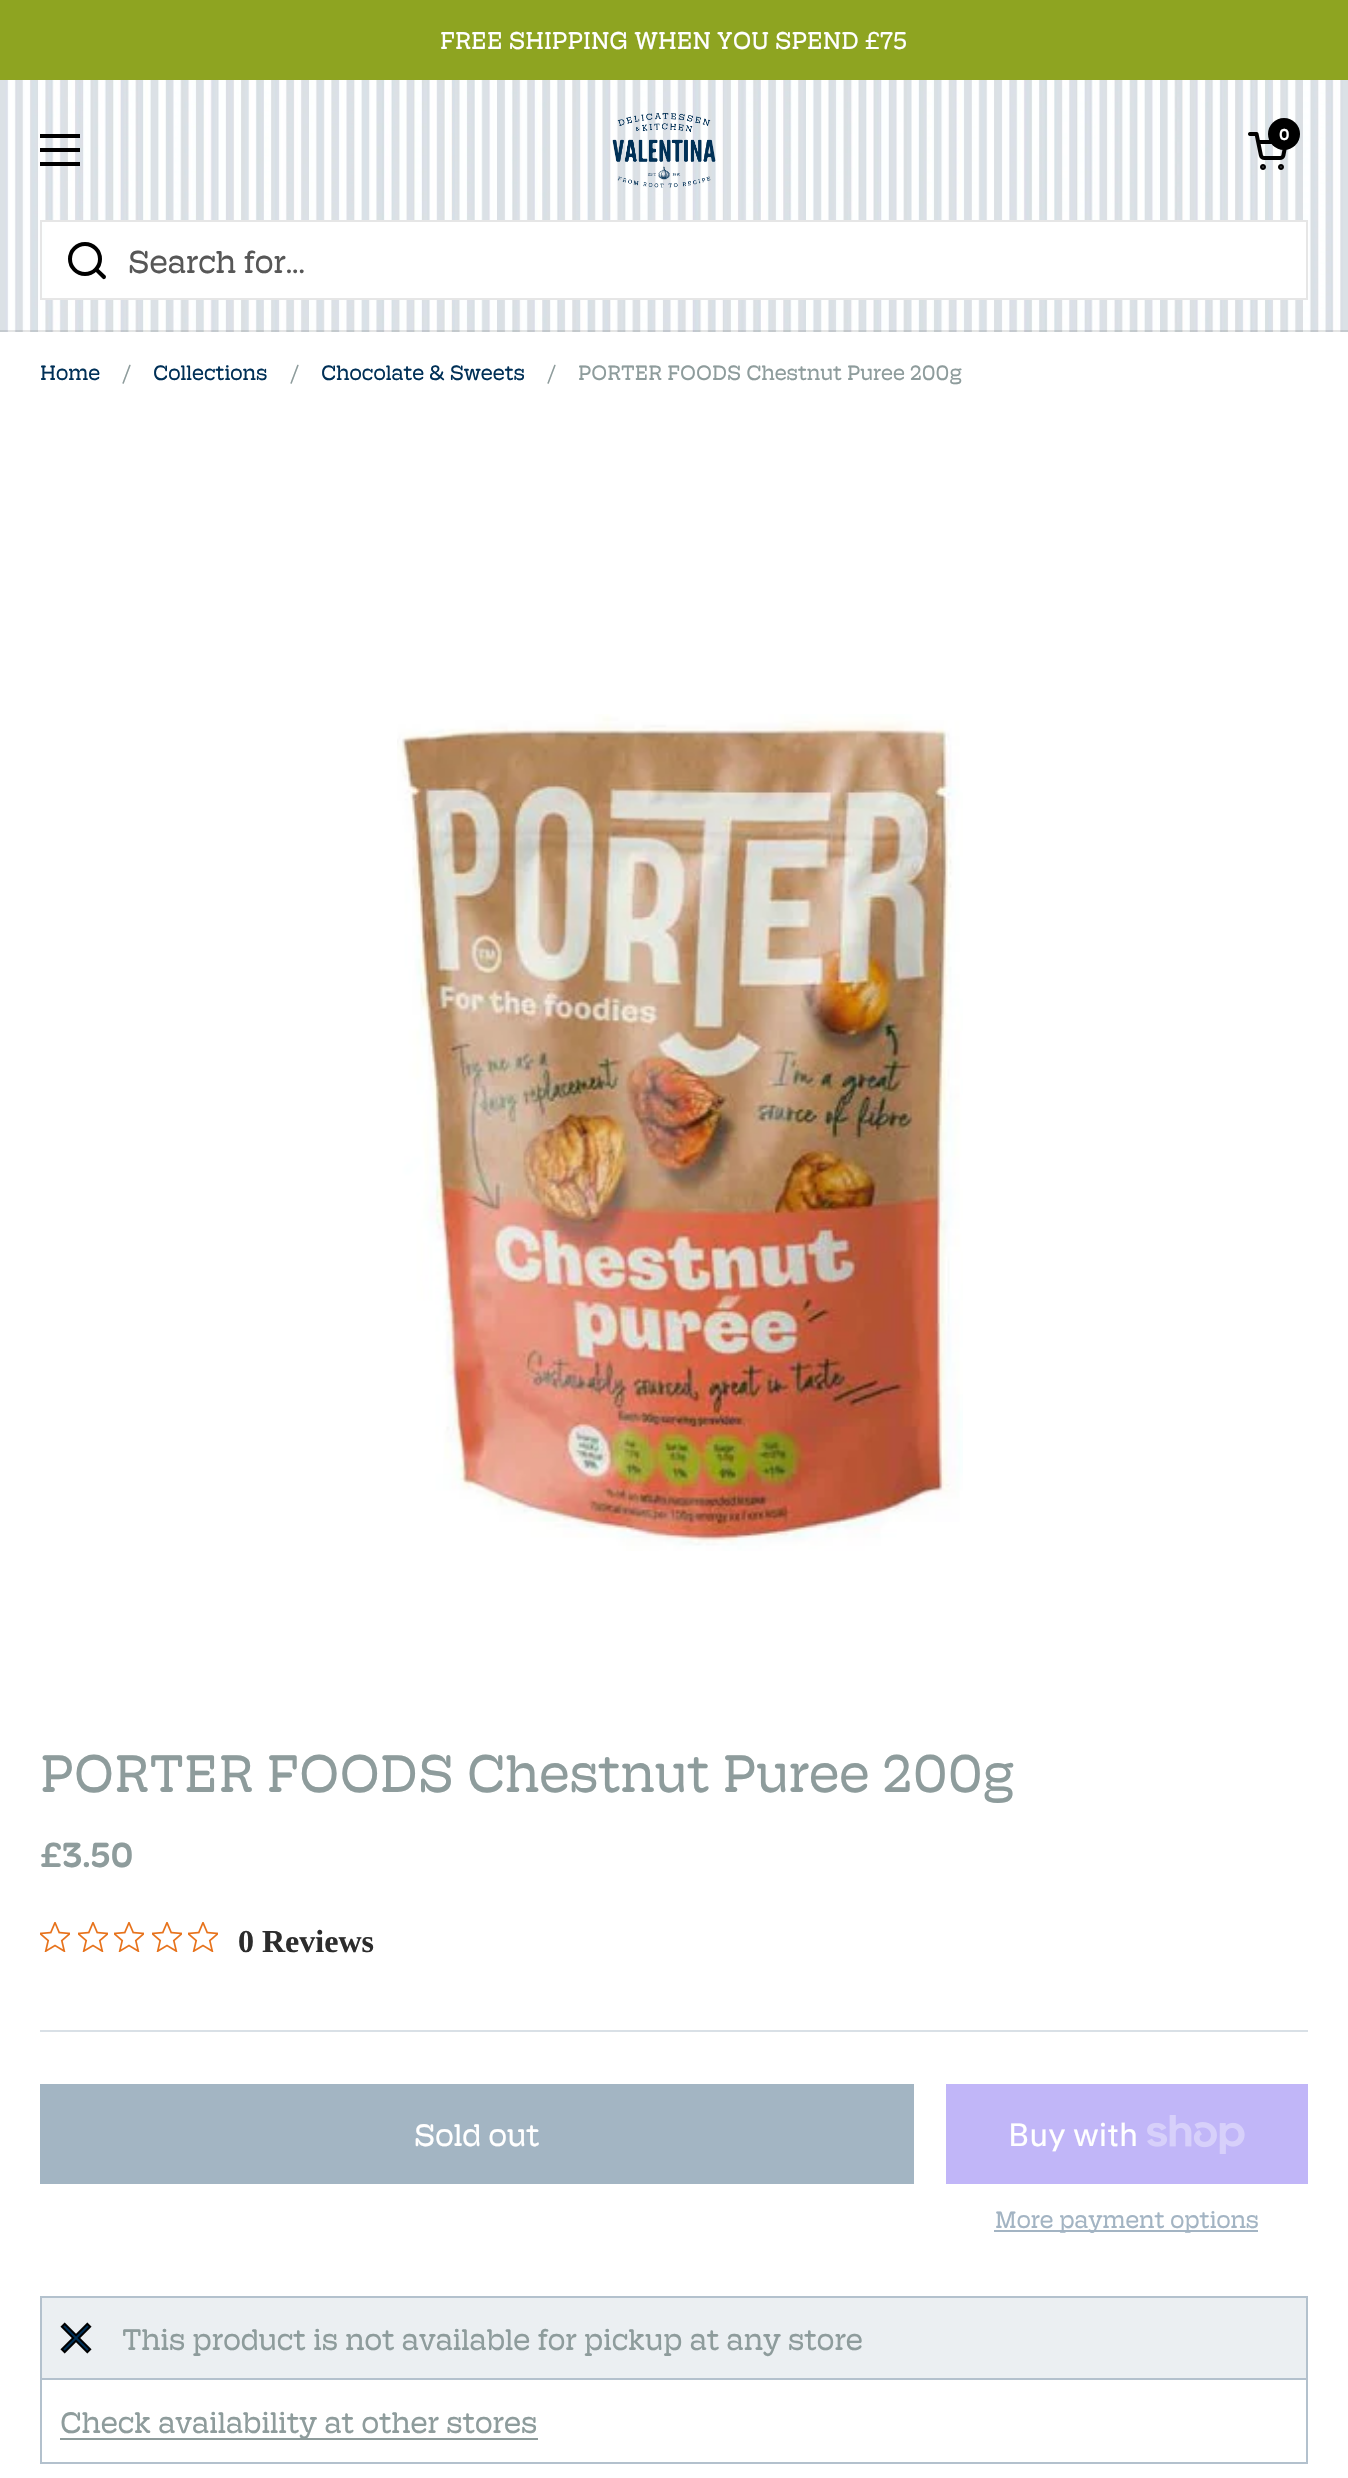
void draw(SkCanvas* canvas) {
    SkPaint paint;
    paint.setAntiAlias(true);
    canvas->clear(0xFFFFFFFF);
    paint.setColor(0xFF8EA421);
    canvas->drawRect(SkRect::MakeXYWH(0, 0, 1348, 80), paint);
    SkFont font1(fontMgr->matchFamilyStyle("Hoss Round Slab", SkFontStyle::Normal()), 24.5f);
    font1.setSubpixel(true);
    paint.setColor(0xFFFFFFFF);
    canvas->drawString("FREE SHIPPING WHEN YOU SPEND £75", 440, 49, font1, paint);
    canvas->drawImageRect(SkImages::DeferredFromEncodedData(SkData::MakeFromFileName("img1.png")), SkRect::MakeXYWH(0, 80, 1348, 140), SkSamplingOptions());
    paint.setColor(0xFF000000);
    canvas->drawRect(SkRect::MakeXYWH(40, 134, 40, 4), paint);
    canvas->drawRect(SkRect::MakeXYWH(40, 148, 40, 4), paint);
    canvas->drawRect(SkRect::MakeXYWH(40, 162, 40, 4), paint);
    canvas->drawImageRect(SkImages::DeferredFromEncodedData(SkData::MakeFromFileName("img2.png")), SkRect::MakeXYWH(612, 113, 104, 75), SkSamplingOptions());
    canvas->drawImageRect(SkImages::DeferredFromEncodedData(SkData::MakeFromFileName("img3.png")), SkRect::MakeXYWH(1248, 132, 39, 38), SkSamplingOptions());
    canvas->drawCircle(1284, 134, 16, paint);
    SkFont font2(fontMgr->matchFamilyStyle("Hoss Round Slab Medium", SkFontStyle(500, SkFontStyle::kNormal_Width, SkFontStyle::kUpright_Slant)), 16);
    font2.setSubpixel(true);
    paint.setColor(0xFFFFFFFF);
    canvas->drawString("0", 1279, 140, font2, paint);
    canvas->drawImageRect(SkImages::DeferredFromEncodedData(SkData::MakeFromFileName("img4.png")), SkRect::MakeXYWH(0, 220, 1348, 112), SkSamplingOptions());
    paint.setColor(0x1A000000);
    canvas->drawRect(SkRect::MakeXYWH(0, 330, 1348, 2), paint);
    paint.setColor(0xFFFFFFFF);
    canvas->drawRect(SkRect::MakeXYWH(45, 222, 1261, 76), paint);
    paint.setStyle(SkPaint::kStroke_Style);
    paint.setStrokeWidth(2);
    paint.setColor(0xFFE6E6E6);
    canvas->drawRect(SkRect::MakeXYWH(41, 221, 1266, 78), paint);
    paint.setStrokeWidth(4);
    paint.setColor(0xFF000000);
    canvas->drawCircle(85, 259, 15, paint);
    paint.setStyle(SkPaint::kFill_Style);
    canvas->drawPath(SkPathBuilder().moveTo(98, 268.5f).lineTo(97, 267).lineTo(94, 270).lineTo(95.5f, 271.5f).close().moveTo(102.5f, 278.5f).cubicTo(104.5f, 280.5f, 107, 277.5f, 105.5f, 275.5f).close().moveTo(95.5f, 271.5f).lineTo(102.5f, 278.5f).lineTo(105.5f, 275.5f).lineTo(98, 268.5f).close().detach(), paint);
    SkFont font3(fontMgr->matchFamilyStyle("Hoss Round Slab", SkFontStyle::Normal()), 32);
    font3.setSubpixel(true);
    paint.setColor(0xFF575757);
    canvas->drawString("Search for...", 128, 273, font3, paint);
    SkFont font4(fontMgr->matchFamilyStyle("Hoss Round Slab", SkFontStyle::Normal()), 21);
    font4.setSubpixel(true);
    paint.setColor(0xFF003057);
    canvas->drawString("Home", 40, 380, font4, paint);
    paint.setColor(0xFF8E9C9C);
    canvas->drawString("/", 122, 380, font4, paint);
    paint.setColor(0xFF003057);
    canvas->drawString("Collections", 153, 380, font4, paint);
    paint.setColor(0xFF8E9C9C);
    canvas->drawString("/", 290, 380, font4, paint);
    paint.setColor(0xFF003057);
    canvas->drawString("Chocolate & Sweets", 321, 380, font4, paint);
    paint.setColor(0xFF8E9C9C);
    canvas->drawString("/", 547, 380, font4, paint);
    canvas->drawString("PORTER FOODS Chestnut Puree 200g", 578, 380, font4, paint);
    canvas->drawImageRect(SkImages::DeferredFromEncodedData(SkData::MakeFromFileName("img5.png")), SkRect::MakeXYWH(397, 714, 566, 837), SkSamplingOptions());
    SkFont font5(fontMgr->matchFamilyStyle("Hoss Round Slab", SkFontStyle::Normal()), 53.3f);
    font5.setSubpixel(true);
    canvas->drawString("PORTER FOODS Chestnut Puree 200g", 40, 1792, font5, paint);
    SkFont font6(fontMgr->matchFamilyStyle("Hoss Round Slab Medium", SkFontStyle(500, SkFontStyle::kNormal_Width, SkFontStyle::kUpright_Slant)), 35);
    font6.setSubpixel(true);
    canvas->drawString("£3.50", 40, 1867, font6, paint);
    canvas->drawImageRect(SkImages::DeferredFromEncodedData(SkData::MakeFromFileName("img6.png")), SkRect::MakeXYWH(40, 1922, 30, 30), SkSamplingOptions());
    canvas->drawImageRect(SkImages::DeferredFromEncodedData(SkData::MakeFromFileName("img6.png")), SkRect::MakeXYWH(78, 1922, 30, 30), SkSamplingOptions());
    canvas->drawImageRect(SkImages::DeferredFromEncodedData(SkData::MakeFromFileName("img6.png")), SkRect::MakeXYWH(114, 1922, 30, 30), SkSamplingOptions());
    canvas->drawImageRect(SkImages::DeferredFromEncodedData(SkData::MakeFromFileName("img6.png")), SkRect::MakeXYWH(152, 1922, 30, 30), SkSamplingOptions());
    canvas->drawImageRect(SkImages::DeferredFromEncodedData(SkData::MakeFromFileName("img6.png")), SkRect::MakeXYWH(188, 1922, 30, 30), SkSamplingOptions());
    SkFont font7(fontMgr->matchFamilyStyle("Liberation Serif", SkFontStyle::Bold()), 32);
    font7.setSubpixel(true);
    paint.setColor(0xFF2C2C2C);
    canvas->drawString("0 Reviews", 238, 1952, font7, paint);
    paint.setColor(0xFFD9E0E6);
    canvas->drawRect(SkRect::MakeXYWH(40, 2030, 1268, 2), paint);
    paint.setColor(0xFFA3B5C3);
    canvas->drawRect(SkRect::MakeXYWH(40, 2084, 874, 100), paint);
    SkFont font8(fontMgr->matchFamilyStyle("Hoss Round Slab", SkFontStyle::Normal()), 31.5f);
    font8.setSubpixel(true);
    paint.setColor(0xFFFFFFFF);
    canvas->drawString("Sold out", 414, 2146, font8, paint);
    paint.setColor(0xFFC1B6F8);
    canvas->drawRect(SkRect::MakeXYWH(946, 2084, 362, 100), paint);
    SkFont font9(fontMgr->matchFamilyStyle("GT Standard", SkFontStyle::Normal()), 32);
    font9.setSubpixel(true);
    paint.setColor(0xFFFFFFFF);
    canvas->drawString("Buy with", 1008, 2146, font9, paint);
    canvas->drawImageRect(SkImages::DeferredFromEncodedData(SkData::MakeFromFileName("img7.png")), SkRect::MakeXYWH(1147, 2115, 98, 39), SkSamplingOptions());
    paint.setColor(0xFFA3B4C3);
    canvas->drawRect(SkRect::MakeXYWH(994, 2230, 264, 2), paint);
    SkFont font10(fontMgr->matchFamilyStyle("Hoss Round Slab", SkFontStyle::Normal()), 24);
    font10.setSubpixel(true);
    canvas->drawString("More payment options", 995, 2228, font10, paint);
    paint.setStyle(SkPaint::kStroke_Style);
    paint.setStrokeWidth(2);
    paint.setColor(0xFFB3C1CD);
    canvas->drawRect(SkRect::MakeXYWH(41, 2297, 1266, 166), paint);
    paint.setStyle(SkPaint::kFill_Style);
    paint.setColor(0xFFEBEFF2);
    canvas->drawRect(SkRect::MakeXYWH(42, 2298, 1264, 80), paint);
    canvas->drawImageRect(SkImages::DeferredFromEncodedData(SkData::MakeFromFileName("img8.png")), SkRect::MakeXYWH(60, 2322, 32, 32), SkSamplingOptions());
    SkFont font11(fontMgr->matchFamilyStyle("Hoss Round Slab", SkFontStyle::Normal()), 30);
    font11.setSubpixel(true);
    paint.setColor(0xFF8E9C9C);
    canvas->drawString("This product is not available for pickup at any store", 122, 2350, font11, paint);
    paint.setColor(0xFFB3C1CD);
    canvas->drawRect(SkRect::MakeXYWH(42, 2378, 1264, 2), paint);
    paint.setColor(0xFF8E9C9C);
    canvas->drawRect(SkRect::MakeXYWH(60, 2438, 478, 2), paint);
    canvas->drawString("Check availability at other stores", 60, 2433, font11, paint);
}
